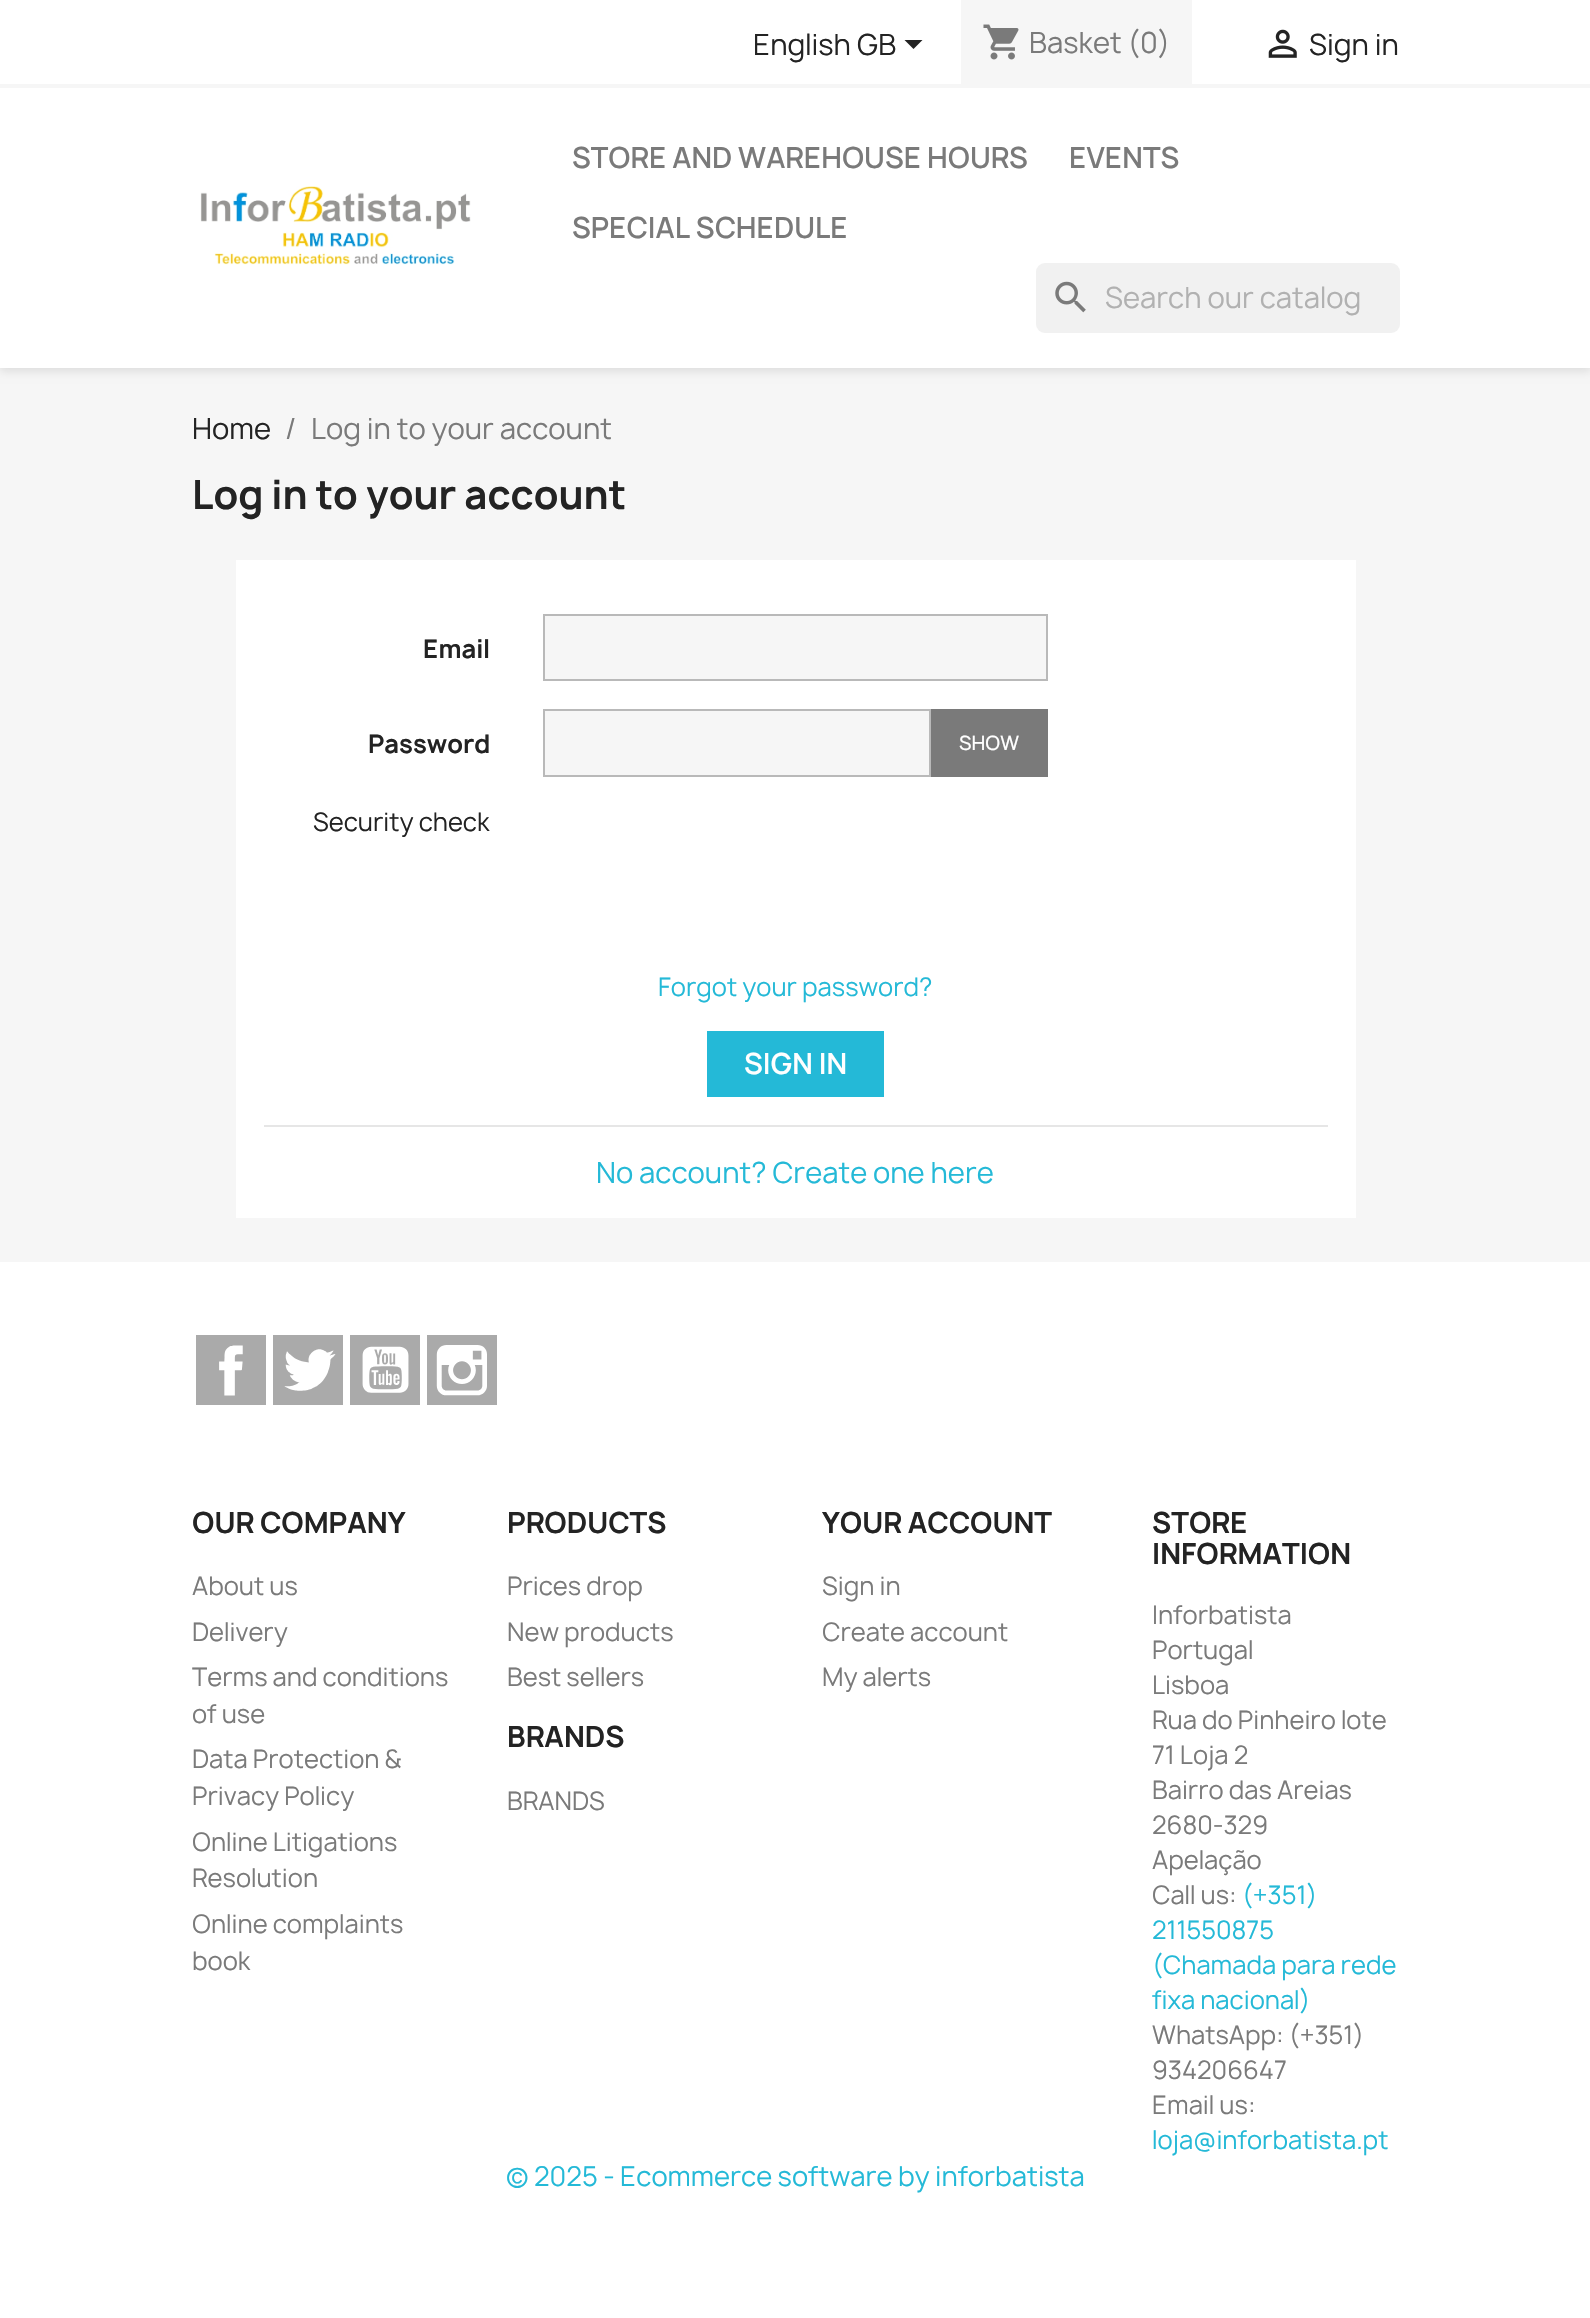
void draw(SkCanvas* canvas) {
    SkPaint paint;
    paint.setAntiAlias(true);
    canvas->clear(0xFFFFFFFF);
    paint.setColor(0xFFF6F6F6);
    canvas->drawRect(SkRect::MakeXYWH(0, 368, 1590, 894), paint);
    paint.setColor(0x1C000000);
    paint.setMaskFilter(SkMaskFilter::MakeBlur(kNormal_SkBlurStyle, 4.5f));
    canvas->drawRect(SkRect::MakeXYWH(0, 4, 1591, 367), paint);
    paint.setMaskFilter(nullptr);
    paint.setColor(0xFFFFFFFF);
    canvas->drawRect(SkRect::MakeXYWH(0, 0, 1590, 368), paint);
    paint.setColor(0xFFF6F6F6);
    canvas->drawRect(SkRect::MakeXYWH(0, 84, 1590, 4), paint);
    SkFont font1(fontMgr->matchFamilyStyle("Manrope", SkFontStyle::Normal()), 28);
    font1.setSubpixel(true);
    paint.setColor(0xFF232323);
    canvas->drawString("English GB", 753, 55, font1, paint);
    canvas->drawPath(SkPathBuilder().moveTo(904.5f, 40).lineTo(922.5f, 40).lineTo(913.5f, 49).close().detach(), paint);
    paint.setColor(0xFFF6F6F6);
    canvas->drawRect(SkRect::MakeXYWH(961, 0, 231, 84), paint);
    canvas->drawImageRect(SkImages::DeferredFromEncodedData(SkData::MakeFromFileName("img1.png")), SkRect::MakeXYWH(983, 24, 36, 36), SkSamplingOptions());
    paint.setColor(0xFF7A7A7A);
    canvas->drawString("Basket (0)", 1029, 53, font1, paint);
    canvas->drawImageRect(SkImages::DeferredFromEncodedData(SkData::MakeFromFileName("img2.png")), SkRect::MakeXYWH(1268, 29, 29, 29), SkSamplingOptions());
    paint.setColor(0xFF232323);
    canvas->drawString("Sign in", 1309, 55, font1, paint);
    canvas->drawImageRect(SkImages::DeferredFromEncodedData(SkData::MakeFromFileName("img3.png")), SkRect::MakeXYWH(200, 186, 271, 79), SkSamplingOptions());
    SkFont font2(fontMgr->matchFamilyStyle("Manrope", SkFontStyle(600, SkFontStyle::kNormal_Width, SkFontStyle::kUpright_Slant)), 28);
    font2.setSubpixel(true);
    paint.setColor(0xFF7A7A7A);
    canvas->drawString("STORE AND WAREHOUSE HOURS", 572, 168, font2, paint);
    canvas->drawString("EVENTS", 1069, 168, font2, paint);
    canvas->drawString("SPECIAL SCHEDULE", 572, 238, font2, paint);
    paint.setColor(0xFFF1F1F1);
    canvas->drawRoundRect(SkRect::MakeXYWH(1036, 263, 364, 70), 9, 9, paint);
    canvas->drawImageRect(SkImages::DeferredFromEncodedData(SkData::MakeFromFileName("img4.png")), SkRect::MakeXYWH(1055, 281, 31, 32), SkSamplingOptions());
    paint.setColor(0xFFB1B1B1);
    canvas->drawString("Search our catalog", 1105, 308, font1, paint);
    paint.setColor(0xFF232323);
    canvas->drawString("Home", 192, 439, font1, paint);
    paint.setColor(0xFF7A7A7A);
    canvas->drawString("/", 285, 439, font1, paint);
    canvas->drawString("Log in to your account", 311, 439, font1, paint);
    SkFont font3(fontMgr->matchFamilyStyle("Manrope", SkFontStyle::Bold()), 38.5f);
    font3.setSubpixel(true);
    paint.setColor(0xFF232323);
    canvas->drawString("Log in to your account", 192, 509, font3, paint);
    paint.setColor(0xFFFFFFFF);
    canvas->drawRect(SkRect::MakeXYWH(236, 560, 1120, 658), paint);
    SkFont font4(fontMgr->matchFamilyStyle("Manrope", SkFontStyle::Bold()), 24.5f);
    font4.setSubpixel(true);
    paint.setColor(0xFF232323);
    canvas->drawString("Email", 423, 658, font4, paint);
    paint.setColor(0xFFF6F6F6);
    canvas->drawRect(SkRect::MakeXYWH(544, 615, 503, 65), paint);
    paint.setStyle(SkPaint::kStroke_Style);
    paint.setStrokeWidth(2);
    paint.setColor(0xFFB9B9B9);
    canvas->drawRect(SkRect::MakeXYWH(544, 615, 503, 65), paint);
    paint.setStyle(SkPaint::kFill_Style);
    paint.setColor(0xFF232323);
    canvas->drawString("Password", 368, 753, font4, paint);
    paint.setColor(0xFFF6F6F6);
    canvas->drawRect(SkRect::MakeXYWH(544, 710, 386, 66), paint);
    paint.setStyle(SkPaint::kStroke_Style);
    paint.setColor(0xFFB9B9B9);
    canvas->drawRect(SkRect::MakeXYWH(544, 710, 386, 66), paint);
    paint.setStyle(SkPaint::kFill_Style);
    paint.setColor(0xFF7A7A7A);
    canvas->drawRect(SkRect::MakeXYWH(931, 709, 117, 68), paint);
    SkFont font5(fontMgr->matchFamilyStyle("Manrope", SkFontStyle(500, SkFontStyle::kNormal_Width, SkFontStyle::kUpright_Slant)), 19);
    font5.setSubpixel(true);
    paint.setColor(0xFFFFFFFF);
    canvas->drawString("SHOW", 959, 750, font5, paint);
    SkFont font6(fontMgr->matchFamilyStyle("Manrope", SkFontStyle::Normal()), 24.5f);
    font6.setSubpixel(true);
    paint.setColor(0xFF232323);
    canvas->drawString("Security check", 313, 831, font6, paint);
    paint.setColor(0xFF24B9D7);
    canvas->drawString("Forgot your password?", 658, 996, font6, paint);
    canvas->drawRect(SkRect::MakeXYWH(707, 1031, 177, 66), paint);
    paint.setColor(0xFFFFFFFF);
    canvas->drawString("SIGN IN", 744, 1074, font2, paint);
    paint.setColor(0xFFE6E6E6);
    canvas->drawRect(SkRect::MakeXYWH(264, 1125, 1064, 2), paint);
    paint.setColor(0xFF24B9D7);
    canvas->drawString("No account? Create one here", 596, 1183, font1, paint);
    paint.setColor(0xFFAAAAAA);
    canvas->drawRect(SkRect::MakeXYWH(196, 1335, 70, 70), paint);
    canvas->drawImageRect(SkImages::DeferredFromEncodedData(SkData::MakeFromFileName("img5.png")), SkRect::MakeXYWH(219, 1345, 24, 51), SkSamplingOptions());
    canvas->drawRect(SkRect::MakeXYWH(273, 1335, 70, 70), paint);
    canvas->drawImageRect(SkImages::DeferredFromEncodedData(SkData::MakeFromFileName("img6.png")), SkRect::MakeXYWH(284, 1349, 52, 42), SkSamplingOptions());
    canvas->drawRect(SkRect::MakeXYWH(350, 1335, 70, 70), paint);
    canvas->drawImageRect(SkImages::DeferredFromEncodedData(SkData::MakeFromFileName("img7.png")), SkRect::MakeXYWH(362, 1346, 47, 47), SkSamplingOptions());
    canvas->drawRect(SkRect::MakeXYWH(427, 1335, 70, 70), paint);
    canvas->drawImageRect(SkImages::DeferredFromEncodedData(SkData::MakeFromFileName("img8.png")), SkRect::MakeXYWH(436, 1345, 51, 51), SkSamplingOptions());
    SkFont font7(fontMgr->matchFamilyStyle("Manrope", SkFontStyle::Bold()), 28);
    font7.setSubpixel(true);
    paint.setColor(0xFF232323);
    canvas->drawString("OUR COMPANY", 192, 1533, font7, paint);
    paint.setColor(0xFF7A7A7A);
    canvas->drawString("About us", 192, 1595, font6, paint);
    canvas->drawString("Delivery", 192, 1641, font6, paint);
    canvas->drawString("Terms and conditions", 192, 1686, font6, paint);
    canvas->drawString("of use", 192, 1723, font6, paint);
    canvas->drawString("Data Protection &", 192, 1768, font6, paint);
    canvas->drawString("Privacy Policy", 192, 1805, font6, paint);
    canvas->drawString("Online Litigations", 192, 1851, font6, paint);
    canvas->drawString("Resolution", 192, 1887, font6, paint);
    canvas->drawString("Online complaints", 192, 1933, font6, paint);
    canvas->drawString("book", 192, 1970, font6, paint);
    paint.setColor(0xFF232323);
    canvas->drawString("PRODUCTS", 507, 1533, font7, paint);
    paint.setColor(0xFF7A7A7A);
    canvas->drawString("Prices drop", 507, 1595, font6, paint);
    canvas->drawString("New products", 507, 1641, font6, paint);
    canvas->drawString("Best sellers", 507, 1686, font6, paint);
    paint.setColor(0xFF232323);
    canvas->drawString("BRANDS", 507, 1747, font7, paint);
    paint.setColor(0xFF7A7A7A);
    canvas->drawString("BRANDS", 507, 1810, font6, paint);
    paint.setColor(0xFF232323);
    canvas->drawString("YOUR ACCOUNT", 822, 1533, font7, paint);
    paint.setColor(0xFF7A7A7A);
    canvas->drawString("Sign in", 822, 1595, font6, paint);
    canvas->drawString("Create account", 822, 1641, font6, paint);
    canvas->drawString("My alerts", 822, 1686, font6, paint);
    paint.setColor(0xFF232323);
    canvas->drawString("STORE", 1152, 1533, font7, paint);
    canvas->drawString("INFORMATION", 1152, 1564, font7, paint);
    paint.setColor(0xFF7A7A7A);
    canvas->drawString("Inforbatista", 1152, 1624, font6, paint);
    canvas->drawString("Portugal", 1152, 1659, font6, paint);
    canvas->drawString("Lisboa", 1152, 1694, font6, paint);
    canvas->drawString("Rua do Pinheiro lote", 1152, 1729, font6, paint);
    canvas->drawString("71 Loja 2", 1152, 1764, font6, paint);
    canvas->drawString("Bairro das Areias", 1152, 1799, font6, paint);
    canvas->drawString("2680-329", 1152, 1834, font6, paint);
    canvas->drawString("Apelação", 1152, 1869, font6, paint);
    canvas->drawString("Call us:", 1152, 1904, font6, paint);
    paint.setColor(0xFF24B9D7);
    canvas->drawString("(+351)", 1242, 1904, font6, paint);
    canvas->drawString("211550875", 1152, 1939, font6, paint);
    canvas->drawString("(Chamada para rede", 1152, 1974, font6, paint);
    canvas->drawString("fixa nacional)", 1152, 2009, font6, paint);
    paint.setColor(0xFF7A7A7A);
    canvas->drawString("WhatsApp: (+351)", 1152, 2044, font6, paint);
    canvas->drawString("934206647", 1152, 2079, font6, paint);
    canvas->drawString("Email us:", 1152, 2114, font6, paint);
    paint.setColor(0xFF24B9D7);
    canvas->drawString("loja@inforbatista.pt", 1152, 2149, font6, paint);
    SkFont font8(fontMgr->matchFamilyStyle("Manrope", SkFontStyle::Normal()), 26.25f);
    font8.setSubpixel(true);
    canvas->drawString("© 2025 - Ecommerce software by inforbatista", 506, 2186, font8, paint);
}
